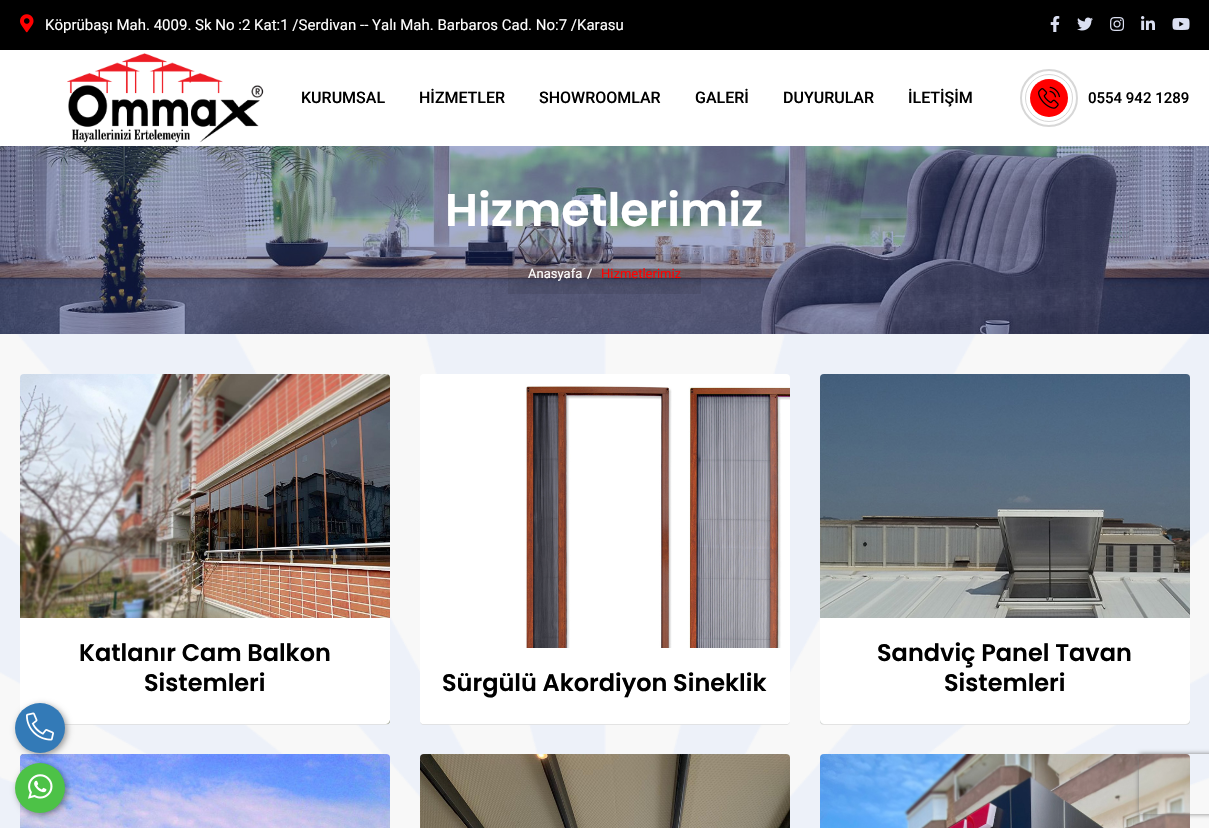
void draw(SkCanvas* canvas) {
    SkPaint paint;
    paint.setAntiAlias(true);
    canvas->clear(0xFFFFFFFF);
    paint.setColor(0xFF000000);
    canvas->drawRect(SkRect::MakeXYWH(0, 0, 1209, 50), paint);
    canvas->drawImageRect(SkImages::DeferredFromEncodedData(SkData::MakeFromFileName("img1.png")), SkRect::MakeXYWH(20, 14, 14, 19), SkSamplingOptions());
    SkFont font1(fontMgr->matchFamilyStyle("Roboto", SkFontStyle::Normal()), 15);
    font1.setSubpixel(true);
    paint.setColor(0xFFFFFFFF);
    canvas->drawString("Köprübaşı Mah. 4009. Sk No :2 Kat:1 /Serdivan -- Yalı Mah. Barbaros Cad. No:7 /Karasu", 45, 30, font1, paint);
    canvas->drawImageRect(SkImages::DeferredFromEncodedData(SkData::MakeFromFileName("img2.png")), SkRect::MakeXYWH(1050, 16, 10, 16), SkSamplingOptions());
    canvas->drawImageRect(SkImages::DeferredFromEncodedData(SkData::MakeFromFileName("img3.png")), SkRect::MakeXYWH(1077, 17, 16, 14), SkSamplingOptions());
    canvas->drawImageRect(SkImages::DeferredFromEncodedData(SkData::MakeFromFileName("img4.png")), SkRect::MakeXYWH(1110, 17, 15, 14), SkSamplingOptions());
    canvas->drawImageRect(SkImages::DeferredFromEncodedData(SkData::MakeFromFileName("img5.png")), SkRect::MakeXYWH(1141, 16, 14, 14), SkSamplingOptions());
    canvas->drawImageRect(SkImages::DeferredFromEncodedData(SkData::MakeFromFileName("img6.png")), SkRect::MakeXYWH(1172, 18, 18, 12), SkSamplingOptions());
    canvas->drawImageRect(SkImages::DeferredFromEncodedData(SkData::MakeFromFileName("img7.png")), SkRect::MakeXYWH(67, 53, 197, 90), SkSamplingOptions());
    SkFont font2(fontMgr->matchFamilyStyle("Roboto", SkFontStyle(500, SkFontStyle::kNormal_Width, SkFontStyle::kUpright_Slant)), 16);
    font2.setSubpixel(true);
    paint.setColor(0xFF000000);
    canvas->drawString("KURUMSAL", 301, 103, font2, paint);
    canvas->drawString("HİZMETLER", 419, 103, font2, paint);
    canvas->drawString("SHOWROOMLAR", 539, 103, font2, paint);
    canvas->drawString("GALERİ", 695, 103, font2, paint);
    canvas->drawString("DUYURULAR", 783, 103, font2, paint);
    canvas->drawString("İLETİŞİM", 908, 103, font2, paint);
    paint.setColor(0xFFFF0000);
    canvas->drawCircle(1049, 98, 19, paint);
    canvas->drawImageRect(SkImages::DeferredFromEncodedData(SkData::MakeFromFileName("img8.png")), SkRect::MakeXYWH(1038, 86, 22, 23), SkSamplingOptions());
    paint.setStyle(SkPaint::kStroke_Style);
    paint.setStrokeWidth(1);
    paint.setColor(0xFFD7D7D7);
    canvas->drawCircle(1049, 98, 23.5f, paint);
    paint.setStrokeWidth(2);
    canvas->drawCircle(1049, 98, 28, paint);
    SkFont font3(fontMgr->matchFamilyStyle("Roboto", SkFontStyle(500, SkFontStyle::kNormal_Width, SkFontStyle::kUpright_Slant)), 15);
    font3.setSubpixel(true);
    paint.setStyle(SkPaint::kFill_Style);
    paint.setColor(0xFF000000);
    canvas->drawString("0554 942 1289", 1088, 103, font3, paint);
    canvas->drawImageRect(SkImages::DeferredFromEncodedData(SkData::MakeFromFileName("img9.png")), SkRect::MakeXYWH(0, 146, 1209, 188), SkSamplingOptions());
    SkFont font4(fontMgr->matchFamilyStyle("Poppins", SkFontStyle(600, SkFontStyle::kNormal_Width, SkFontStyle::kUpright_Slant)), 46);
    font4.setSubpixel(true);
    paint.setColor(0xFFFFFFFF);
    canvas->drawString("Hizmetlerimiz", 445, 226, font4, paint);
    paint.setColor(0x17000000);
    canvas->drawRect(SkRect::MakeXYWH(508, 254, 193, 40), paint);
    SkFont font5(fontMgr->matchFamilyStyle("Roboto", SkFontStyle::Normal()), 13);
    font5.setSubpixel(true);
    paint.setColor(0xFFFFFFFF);
    canvas->drawString("Anasyafa", 528, 278, font5, paint);
    canvas->drawString("/", 587, 278, font5, paint);
    paint.setColor(0xFFFF0000);
    canvas->drawString("Hizmetlerimiz", 601, 278, font5, paint);
    paint.setColor(0xFFF8F8F8);
    canvas->drawRect(SkRect::MakeXYWH(0, 334, 1209, 494), paint);
    canvas->drawImageRect(SkImages::DeferredFromEncodedData(SkData::MakeFromFileName("img10.png")), SkRect::MakeXYWH(0, 334, 1209, 494), SkSamplingOptions());
    paint.setColor(0xBFDCDCDC);
    canvas->drawPath(SkPathBuilder().moveTo(20, 720).cubicTo(20, 723, 21, 725, 24, 725).lineTo(386, 725).cubicTo(389, 725, 390, 723, 390, 720).cubicTo(390, 722, 388, 724, 386, 724).lineTo(24, 724).cubicTo(22, 724, 20, 722, 20, 720).close().detach(), paint);
    canvas->drawImageRect(SkImages::DeferredFromEncodedData(SkData::MakeFromFileName("img11.png")), SkRect::MakeXYWH(20, 374, 370, 350), SkSamplingOptions());
    paint.setColor(0xFFFFFFFF);
    canvas->drawPath(SkPathBuilder().moveTo(20, 618).lineTo(390, 618).lineTo(390, 720).cubicTo(390, 722, 388, 724, 386, 724).lineTo(24, 724).cubicTo(22, 724, 20, 722, 20, 720).close().detach(), paint);
    SkFont font6(fontMgr->matchFamilyStyle("Poppins", SkFontStyle(600, SkFontStyle::kNormal_Width, SkFontStyle::kUpright_Slant)), 24);
    font6.setSubpixel(true);
    paint.setColor(0xFF000000);
    canvas->drawString("Katlanır Cam Balkon", 79, 661, font6, paint);
    canvas->drawString("Sistemleri", 144, 691, font6, paint);
    paint.setColor(0xBFDCDCDC);
    canvas->drawPath(SkPathBuilder().moveTo(420, 720).cubicTo(420, 723, 421, 725, 424, 725).lineTo(786, 725).cubicTo(789, 725, 790, 723, 790, 720).cubicTo(790, 722, 788, 724, 786, 724).lineTo(424, 724).cubicTo(422, 724, 420, 722, 420, 720).close().detach(), paint);
    canvas->drawImageRect(SkImages::DeferredFromEncodedData(SkData::MakeFromFileName("img12.png")), SkRect::MakeXYWH(420, 374, 370, 350), SkSamplingOptions());
    paint.setColor(0xFFFFFFFF);
    canvas->drawPath(SkPathBuilder().moveTo(420, 648).lineTo(790, 648).lineTo(790, 720).cubicTo(790, 722, 788, 724, 786, 724).lineTo(424, 724).cubicTo(422, 724, 420, 722, 420, 720).close().detach(), paint);
    paint.setColor(0xFF000000);
    canvas->drawString("Sürgülü Akordiyon Sineklik", 442, 691, font6, paint);
    paint.setColor(0xBFDCDCDC);
    canvas->drawPath(SkPathBuilder().moveTo(820, 720).cubicTo(820, 723, 821, 725, 824, 725).lineTo(1186, 725).cubicTo(1189, 725, 1190, 723, 1190, 720).cubicTo(1190, 722, 1188, 724, 1186, 724).lineTo(824, 724).cubicTo(822, 724, 820, 722, 820, 720).close().detach(), paint);
    canvas->drawImageRect(SkImages::DeferredFromEncodedData(SkData::MakeFromFileName("img13.png")), SkRect::MakeXYWH(820, 374, 370, 350), SkSamplingOptions());
    paint.setColor(0xFFFFFFFF);
    canvas->drawPath(SkPathBuilder().moveTo(820, 618).lineTo(1190, 618).lineTo(1190, 720).cubicTo(1190, 722, 1188, 724, 1186, 724).lineTo(824, 724).cubicTo(822, 724, 820, 722, 820, 720).close().detach(), paint);
    paint.setColor(0xFF000000);
    canvas->drawString("Sandviç Panel Tavan", 877, 661, font6, paint);
    canvas->drawString("Sistemleri", 944, 691, font6, paint);
    canvas->drawImageRect(SkImages::DeferredFromEncodedData(SkData::MakeFromFileName("img14.png")), SkRect::MakeXYWH(20, 754, 370, 74), SkSamplingOptions());
    canvas->drawImageRect(SkImages::DeferredFromEncodedData(SkData::MakeFromFileName("img15.png")), SkRect::MakeXYWH(420, 754, 370, 74), SkSamplingOptions());
    canvas->drawImageRect(SkImages::DeferredFromEncodedData(SkData::MakeFromFileName("img16.png")), SkRect::MakeXYWH(820, 754, 370, 74), SkSamplingOptions());
    paint.setColor(0x66000000);
    paint.setMaskFilter(SkMaskFilter::MakeBlur(kNormal_SkBlurStyle, 3));
    canvas->drawRoundRect(SkRect::MakeXYWH(17, 765, 50, 50), 25, 25, paint);
    paint.setMaskFilter(nullptr);
    paint.setColor(0xFF4DC247);
    canvas->drawCircle(40, 788, 25, paint);
    paint.setColor(0x66000000);
    paint.setMaskFilter(SkMaskFilter::MakeBlur(kNormal_SkBlurStyle, 3));
    canvas->drawRoundRect(SkRect::MakeXYWH(17, 705, 50, 50), 25, 25, paint);
    paint.setMaskFilter(nullptr);
    paint.setColor(0xFF337AB7);
    canvas->drawCircle(40, 728, 25, paint);
    canvas->drawImageRect(SkImages::DeferredFromEncodedData(SkData::MakeFromFileName("img17.png")), SkRect::MakeXYWH(26, 712, 28, 29), SkSamplingOptions());
    canvas->drawImageRect(SkImages::DeferredFromEncodedData(SkData::MakeFromFileName("img18.png")), SkRect::MakeXYWH(28, 774, 25, 25), SkSamplingOptions());
    canvas->save();
    canvas->clipPath(SkPathBuilder(SkPathFillType::kEvenOdd).moveTo(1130, 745).lineTo(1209, 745).lineTo(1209, 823).lineTo(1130, 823).close().moveTo(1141, 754).lineTo(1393, 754).cubicTo(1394, 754, 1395, 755, 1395, 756).lineTo(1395, 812).cubicTo(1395, 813, 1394, 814, 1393, 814).lineTo(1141, 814).cubicTo(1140, 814, 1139, 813, 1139, 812).lineTo(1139, 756).cubicTo(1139, 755, 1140, 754, 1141, 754).close().detach(), true);
    paint.setColor(0xFF808080);
    paint.setMaskFilter(SkMaskFilter::MakeBlur(kNormal_SkBlurStyle, 2.5f));
    canvas->drawRoundRect(SkRect::MakeXYWH(1139, 754, 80, 60), 2, 2, paint);
    paint.setMaskFilter(nullptr);
    canvas->restore();
}
